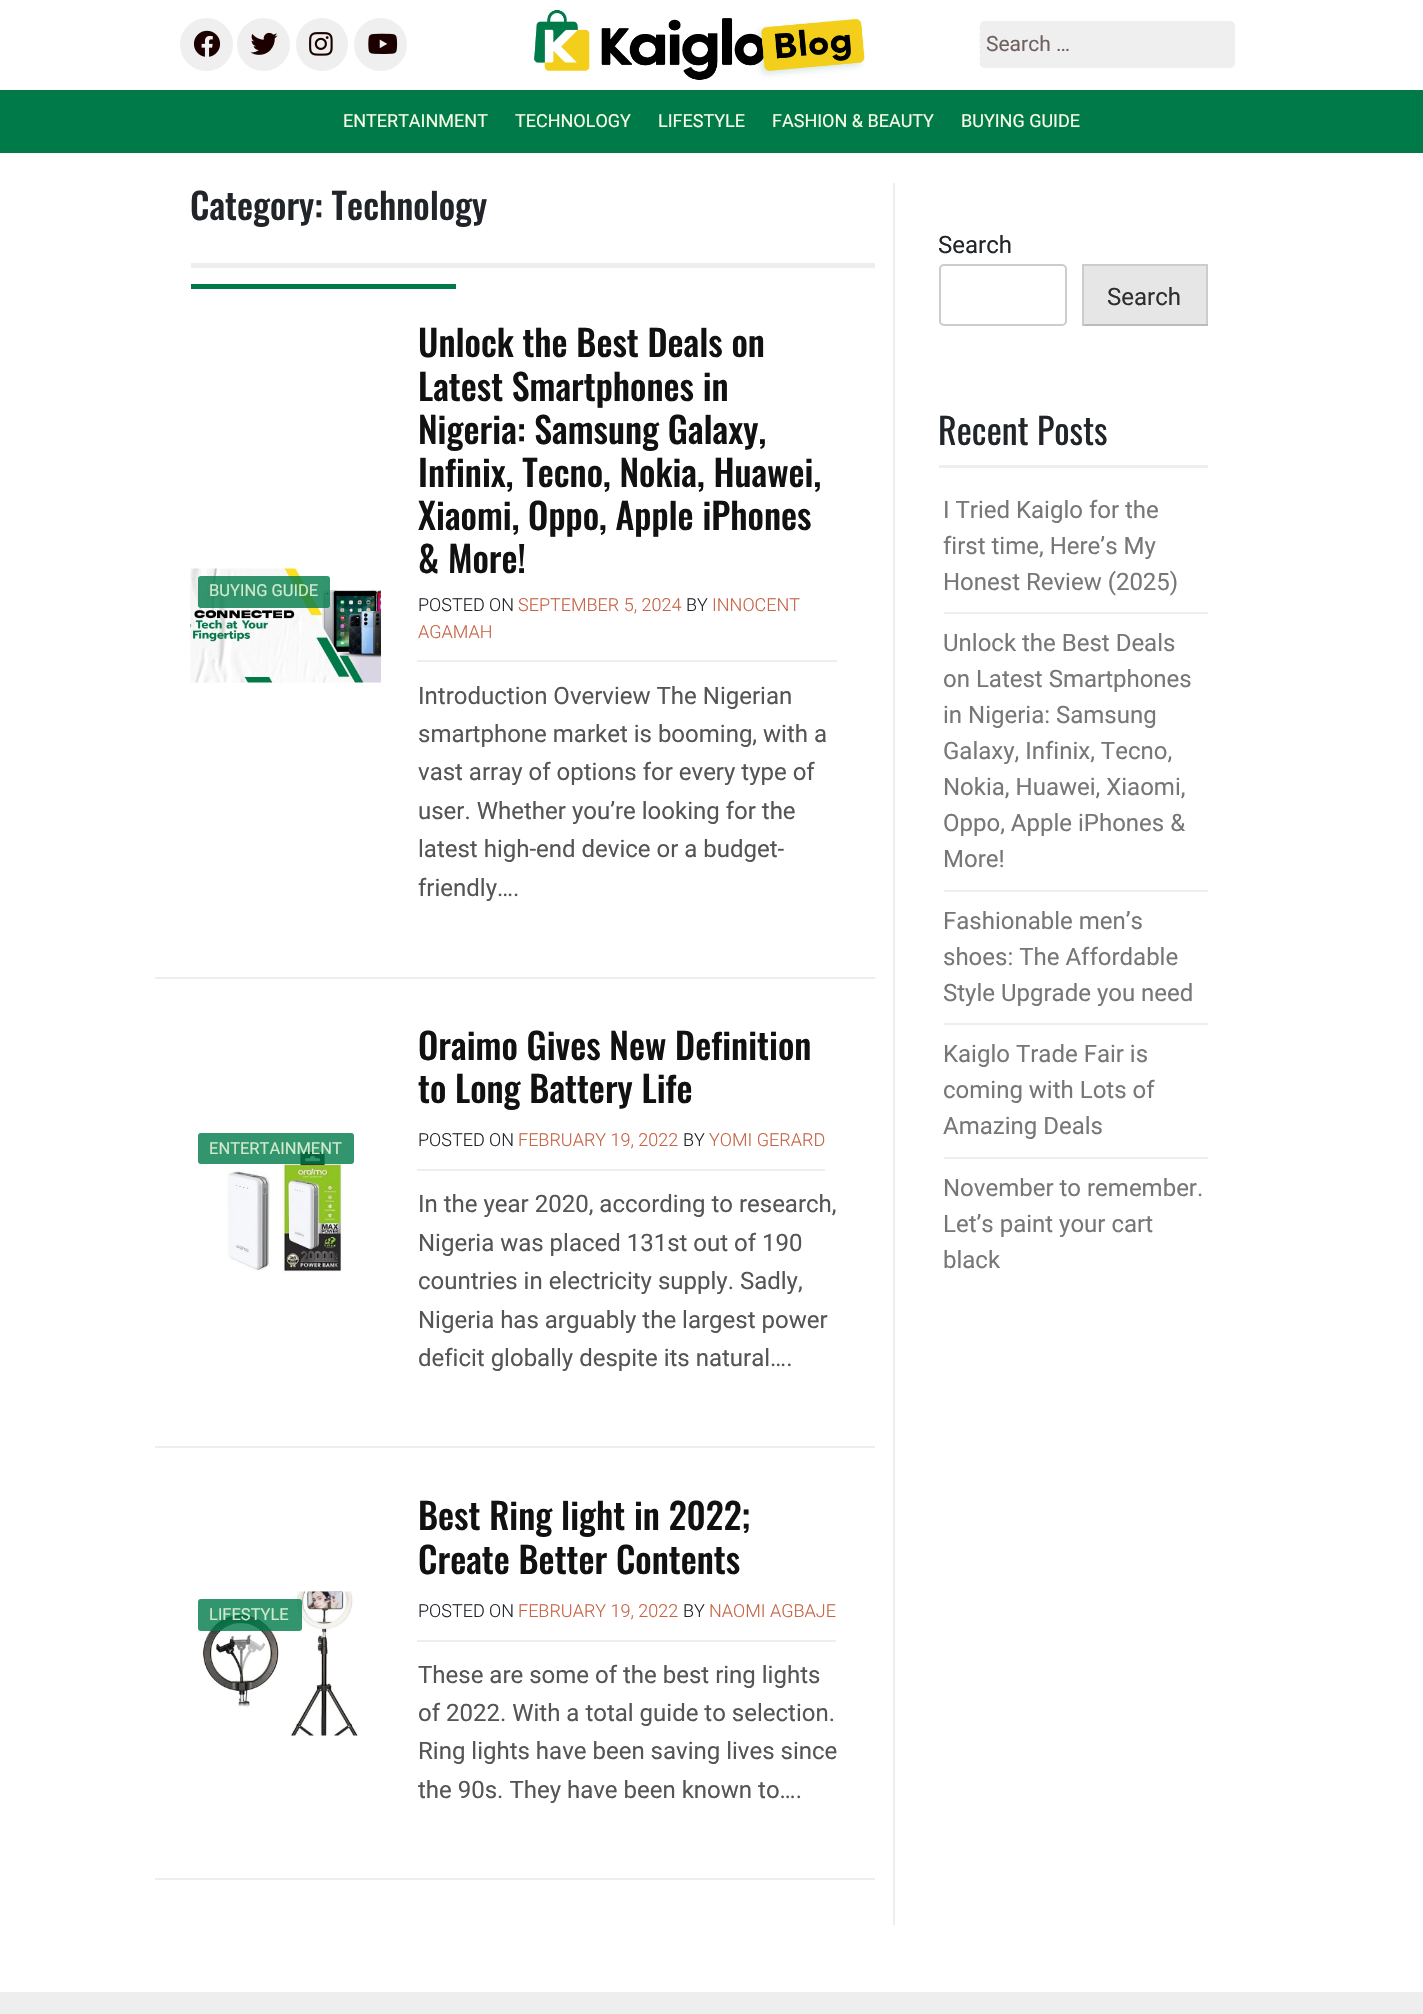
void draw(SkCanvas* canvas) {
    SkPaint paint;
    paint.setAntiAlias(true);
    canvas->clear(0xFFFFFFFF);
    paint.setColor(0xFFEFEFEF);
    canvas->drawCircle(206.5f, 44.5f, 26.5f, paint);
    canvas->drawImageRect(SkImages::DeferredFromEncodedData(SkData::MakeFromFileName("img1.png")), SkRect::MakeXYWH(193, 30, 28, 27), SkSamplingOptions());
    canvas->drawCircle(263.5f, 44.5f, 26.5f, paint);
    canvas->drawImageRect(SkImages::DeferredFromEncodedData(SkData::MakeFromFileName("img2.png")), SkRect::MakeXYWH(250, 32, 28, 23), SkSamplingOptions());
    canvas->drawRoundRect(SkRect::MakeXYWH(296, 18, 52, 53), 26, 26, paint);
    canvas->drawImageRect(SkImages::DeferredFromEncodedData(SkData::MakeFromFileName("img3.png")), SkRect::MakeXYWH(309, 32, 24, 24), SkSamplingOptions());
    canvas->drawCircle(380.5f, 44.5f, 26.5f, paint);
    canvas->drawImageRect(SkImages::DeferredFromEncodedData(SkData::MakeFromFileName("img4.png")), SkRect::MakeXYWH(368, 33, 30, 21), SkSamplingOptions());
    canvas->drawImageRect(SkImages::DeferredFromEncodedData(SkData::MakeFromFileName("img5.png")), SkRect::MakeXYWH(534, 9, 331, 71), SkSamplingOptions());
    canvas->drawRoundRect(SkRect::MakeXYWH(980, 21, 255, 47), 5, 5, paint);
    paint.setStyle(SkPaint::kStroke_Style);
    paint.setStrokeWidth(3);
    paint.setPathEffect(SkDashPathEffect::Make({{3, 3}}, 0));
    canvas->drawPath(SkPathBuilder().moveTo(984, 22.5f).lineTo(1230, 22.5f).cubicTo(1231.5f, 22.5f, 1233, 24, 1233, 25.5f).lineTo(1233, 63).cubicTo(1233, 64.5f, 1231.5f, 66, 1230, 66).lineTo(984, 66).cubicTo(982.5f, 66, 981, 64.5f, 981, 63).lineTo(981, 25.5f).cubicTo(981, 24, 982.5f, 22.5f, 984, 22.5f).close().detach(), paint);
    paint.setPathEffect(nullptr);
    SkFont font1(fontMgr->matchFamilyStyle("Roboto", SkFontStyle::Normal()), 21);
    font1.setSubpixel(true);
    paint.setStyle(SkPaint::kFill_Style);
    paint.setColor(0xFF706060);
    canvas->drawString("Search …", 986, 51, font1, paint);
    paint.setColor(0xFF007A49);
    canvas->drawRect(SkRect::MakeXYWH(0, 90, 1423, 63), paint);
    SkFont font2(fontMgr->matchFamilyStyle("Roboto", SkFontStyle::Normal()), 18);
    font2.setSubpixel(true);
    paint.setColor(0xFFF9FFE7);
    canvas->drawString("ENTERTAINMENT", 343, 127, font2, paint);
    canvas->drawString("TECHNOLOGY", 515, 127, font2, paint);
    canvas->drawString("LIFESTYLE", 658, 127, font2, paint);
    canvas->drawString("FASHION & BEAUTY", 772, 127, font2, paint);
    canvas->drawString("BUYING GUIDE", 961, 127, font2, paint);
    paint.setColor(0xFFEEEEEE);
    canvas->drawRect(SkRect::MakeXYWH(191, 263, 684, 5), paint);
    SkFont font3(fontMgr->matchFamilyStyle("Oswald", SkFontStyle(500, SkFontStyle::kNormal_Width, SkFontStyle::kUpright_Slant)), 36);
    font3.setSubpixel(true);
    paint.setColor(0xFF212529);
    canvas->drawString("Category: Technology", 190, 220, font3, paint);
    paint.setColor(0xFF007A49);
    canvas->drawRect(SkRect::MakeXYWH(191, 284, 265, 5), paint);
    paint.setColor(0xFFEEEEEE);
    canvas->drawRect(SkRect::MakeXYWH(155, 977, 720, 2), paint);
    canvas->drawImageRect(SkImages::DeferredFromEncodedData(SkData::MakeFromFileName("img6.png")), SkRect::MakeXYWH(190, 568, 191, 115), SkSamplingOptions());
    paint.setColor(0xCC007A49);
    canvas->drawRoundRect(SkRect::MakeXYWH(198, 576, 132, 32), 3, 3, paint);
    SkFont font4(fontMgr->matchFamilyStyle("Roboto", SkFontStyle::Normal()), 16.5f);
    font4.setSubpixel(true);
    paint.setColor(0xFFD1E9CD);
    canvas->drawString("BUYING GUIDE", 209, 596, font4, paint);
    paint.setColor(0xFF111111);
    canvas->drawString("Unlock the Best Deals on", 418, 357, font3, paint);
    canvas->drawString("Latest Smartphones in", 418, 401, font3, paint);
    canvas->drawString("Nigeria: Samsung Galaxy,", 418, 444, font3, paint);
    canvas->drawString("Infinix, Tecno, Nokia, Huawei,", 418, 487, font3, paint);
    canvas->drawString("Xiaomi, Oppo, Apple iPhones", 418, 530, font3, paint);
    canvas->drawString("& More!", 418, 573, font3, paint);
    paint.setColor(0xFFEEEEEE);
    canvas->drawRect(SkRect::MakeXYWH(417, 660, 420, 2), paint);
    SkFont font5(fontMgr->matchFamilyStyle("Roboto", SkFontStyle(300, SkFontStyle::kNormal_Width, SkFontStyle::kUpright_Slant)), 18);
    font5.setSubpixel(true);
    paint.setColor(0xFF212529);
    canvas->drawString("POSTED ON", 418, 611, font5, paint);
    paint.setColor(0xFFC66243);
    canvas->drawString("SEPTEMBER 5, 2024", 518, 611, font5, paint);
    paint.setColor(0xFF212529);
    canvas->drawString("BY", 686, 611, font5, paint);
    paint.setColor(0xFFC66243);
    canvas->drawString("INNOCENT", 712, 611, font5, paint);
    canvas->drawString("AGAMAH", 418, 638, font5, paint);
    SkFont font6(fontMgr->matchFamilyStyle("Roboto", SkFontStyle::Normal()), 24);
    font6.setSubpixel(true);
    paint.setColor(0xFF555555);
    canvas->drawString("Introduction Overview The Nigerian", 418, 704, font6, paint);
    canvas->drawString("smartphone market is booming, with a", 418, 742, font6, paint);
    canvas->drawString("vast array of options for every type of", 418, 780, font6, paint);
    canvas->drawString("user. Whether you’re looking for the", 418, 819, font6, paint);
    canvas->drawString("latest high-end device or a budget-", 418, 857, font6, paint);
    canvas->drawString("friendly….", 418, 896, font6, paint);
    paint.setColor(0xFFEEEEEE);
    canvas->drawRect(SkRect::MakeXYWH(155, 1446, 720, 2), paint);
    canvas->drawImageRect(SkImages::DeferredFromEncodedData(SkData::MakeFromFileName("img7.png")), SkRect::MakeXYWH(225, 1142, 120, 131), SkSamplingOptions());
    paint.setColor(0xCC007A49);
    canvas->drawRoundRect(SkRect::MakeXYWH(198, 1133, 156, 31), 3, 3, paint);
    paint.setColor(0xFFD1E9CD);
    canvas->drawString("ENTERTAINMENT", 209, 1154, font4, paint);
    paint.setColor(0xFF111111);
    canvas->drawString("Oraimo Gives New Definition", 418, 1060, font3, paint);
    canvas->drawString("to Long Battery Life", 418, 1103, font3, paint);
    paint.setColor(0xFFEEEEEE);
    canvas->drawRect(SkRect::MakeXYWH(417, 1169, 408, 2), paint);
    paint.setColor(0xFF212529);
    canvas->drawString("POSTED ON", 418, 1146, font5, paint);
    paint.setColor(0xFFC66243);
    canvas->drawString("FEBRUARY 19, 2022", 518, 1146, font5, paint);
    paint.setColor(0xFF212529);
    canvas->drawString("BY", 683, 1146, font5, paint);
    paint.setColor(0xFFC66243);
    canvas->drawString("YOMI GERARD", 709, 1146, font5, paint);
    paint.setColor(0xFF555555);
    canvas->drawString("In the year 2020, according to research,", 418, 1212, font6, paint);
    canvas->drawString("Nigeria was placed 131st out of 190", 418, 1251, font6, paint);
    canvas->drawString("countries in electricity supply. Sadly,", 418, 1289, font6, paint);
    canvas->drawString("Nigeria has arguably the largest power", 418, 1328, font6, paint);
    canvas->drawString("deficit globally despite its natural….", 418, 1366, font6, paint);
    paint.setColor(0xFFEEEEEE);
    canvas->drawRect(SkRect::MakeXYWH(155, 1878, 720, 2), paint);
    canvas->drawImageRect(SkImages::DeferredFromEncodedData(SkData::MakeFromFileName("img8.png")), SkRect::MakeXYWH(202, 1591, 156, 145), SkSamplingOptions());
    paint.setColor(0xCC007A49);
    canvas->drawRoundRect(SkRect::MakeXYWH(198, 1599, 104, 32), 3, 3, paint);
    paint.setColor(0xFFD1E9CD);
    canvas->drawString("LIFESTYLE", 209, 1620, font4, paint);
    paint.setColor(0xFF111111);
    canvas->drawString("Best Ring light in 2022;", 418, 1530, font3, paint);
    canvas->drawString("Create Better Contents", 418, 1574, font3, paint);
    paint.setColor(0xFFEEEEEE);
    canvas->drawRect(SkRect::MakeXYWH(417, 1640, 419, 2), paint);
    paint.setColor(0xFF212529);
    canvas->drawString("POSTED ON", 418, 1617, font5, paint);
    paint.setColor(0xFFC66243);
    canvas->drawString("FEBRUARY 19, 2022", 518, 1617, font5, paint);
    paint.setColor(0xFF212529);
    canvas->drawString("BY", 683, 1617, font5, paint);
    paint.setColor(0xFFC66243);
    canvas->drawString("NAOMI AGBAJE", 709, 1617, font5, paint);
    paint.setColor(0xFF555555);
    canvas->drawString("These are some of the best ring lights", 418, 1683, font6, paint);
    canvas->drawString("of 2022. With a total guide to selection.", 418, 1721, font6, paint);
    canvas->drawString("Ring lights have been saving lives since", 418, 1759, font6, paint);
    canvas->drawString("the 90s. They have been known to….", 418, 1798, font6, paint);
    paint.setColor(0xFFEEEEEE);
    canvas->drawRect(SkRect::MakeXYWH(893, 183, 2, 1742), paint);
    paint.setColor(0xFF212529);
    canvas->drawString("Search", 938, 253, font6, paint);
    paint.setStyle(SkPaint::kStroke_Style);
    paint.setStrokeWidth(2);
    paint.setColor(0xFFCCCCCC);
    canvas->drawRoundRect(SkRect::MakeXYWH(940, 265, 126, 60), 4, 4, paint);
    paint.setStyle(SkPaint::kFill_Style);
    paint.setColor(0xFFE6E6E6);
    canvas->drawRect(SkRect::MakeXYWH(1084, 266, 122, 58), paint);
    paint.setColor(0xFFCCCCCC);
    canvas->drawRect(SkRect::MakeXYWH(1082, 264, 126, 2), paint);
    canvas->drawRect(SkRect::MakeXYWH(1206, 264, 2, 62), paint);
    paint.setColor(0xFFBBBBBB);
    canvas->drawRect(SkRect::MakeXYWH(1082, 324, 126, 2), paint);
    paint.setColor(0xFFCCCCCC);
    canvas->drawRect(SkRect::MakeXYWH(1082, 264, 2, 62), paint);
    paint.setColor(0xFF2E2E2E);
    canvas->drawString("Search", 1107, 305, font6, paint);
    paint.setColor(0xFFEEEEEE);
    canvas->drawRect(SkRect::MakeXYWH(939, 465, 269, 3), paint);
    SkFont font7(fontMgr->matchFamilyStyle("Oswald", SkFontStyle::Normal()), 36);
    font7.setSubpixel(true);
    paint.setColor(0xFF212529);
    canvas->drawString("Recent Posts", 938, 445, font7, paint);
    paint.setColor(0xFFEEEEEE);
    canvas->drawRect(SkRect::MakeXYWH(944, 612, 264, 2), paint);
    paint.setColor(0xFF777777);
    canvas->drawString("I Tried Kaiglo for the", 943, 518, font6, paint);
    canvas->drawString("first time, Here’s My", 943, 554, font6, paint);
    canvas->drawString("Honest Review (2025)", 943, 590, font6, paint);
    paint.setColor(0xFFEEEEEE);
    canvas->drawRect(SkRect::MakeXYWH(944, 890, 264, 2), paint);
    paint.setColor(0xFF777777);
    canvas->drawString("Unlock the Best Deals", 943, 651, font6, paint);
    canvas->drawString("on Latest Smartphones", 943, 687, font6, paint);
    canvas->drawString("in Nigeria: Samsung", 943, 723, font6, paint);
    canvas->drawString("Galaxy, Infinix, Tecno,", 943, 759, font6, paint);
    canvas->drawString("Nokia, Huawei, Xiaomi,", 943, 795, font6, paint);
    canvas->drawString("Oppo, Apple iPhones &", 943, 831, font6, paint);
    canvas->drawString("More!", 943, 867, font6, paint);
    paint.setColor(0xFFEEEEEE);
    canvas->drawRect(SkRect::MakeXYWH(944, 1023, 264, 2), paint);
    paint.setColor(0xFF777777);
    canvas->drawString("Fashionable men’s", 943, 929, font6, paint);
    canvas->drawString("shoes: The Affordable", 943, 965, font6, paint);
    canvas->drawString("Style Upgrade you need", 943, 1001, font6, paint);
    paint.setColor(0xFFEEEEEE);
    canvas->drawRect(SkRect::MakeXYWH(944, 1157, 264, 2), paint);
    paint.setColor(0xFF777777);
    canvas->drawString("Kaiglo Trade Fair is", 943, 1062, font6, paint);
    canvas->drawString("coming with Lots of", 943, 1098, font6, paint);
    canvas->drawString("Amazing Deals", 943, 1134, font6, paint);
    canvas->drawString("November to remember.", 943, 1196, font6, paint);
    canvas->drawString("Let’s paint your cart", 943, 1232, font6, paint);
    canvas->drawString("black", 943, 1268, font6, paint);
    paint.setColor(0xFFEEEEEE);
    canvas->drawRect(SkRect::MakeXYWH(0, 1992, 1423, 22), paint);
}
